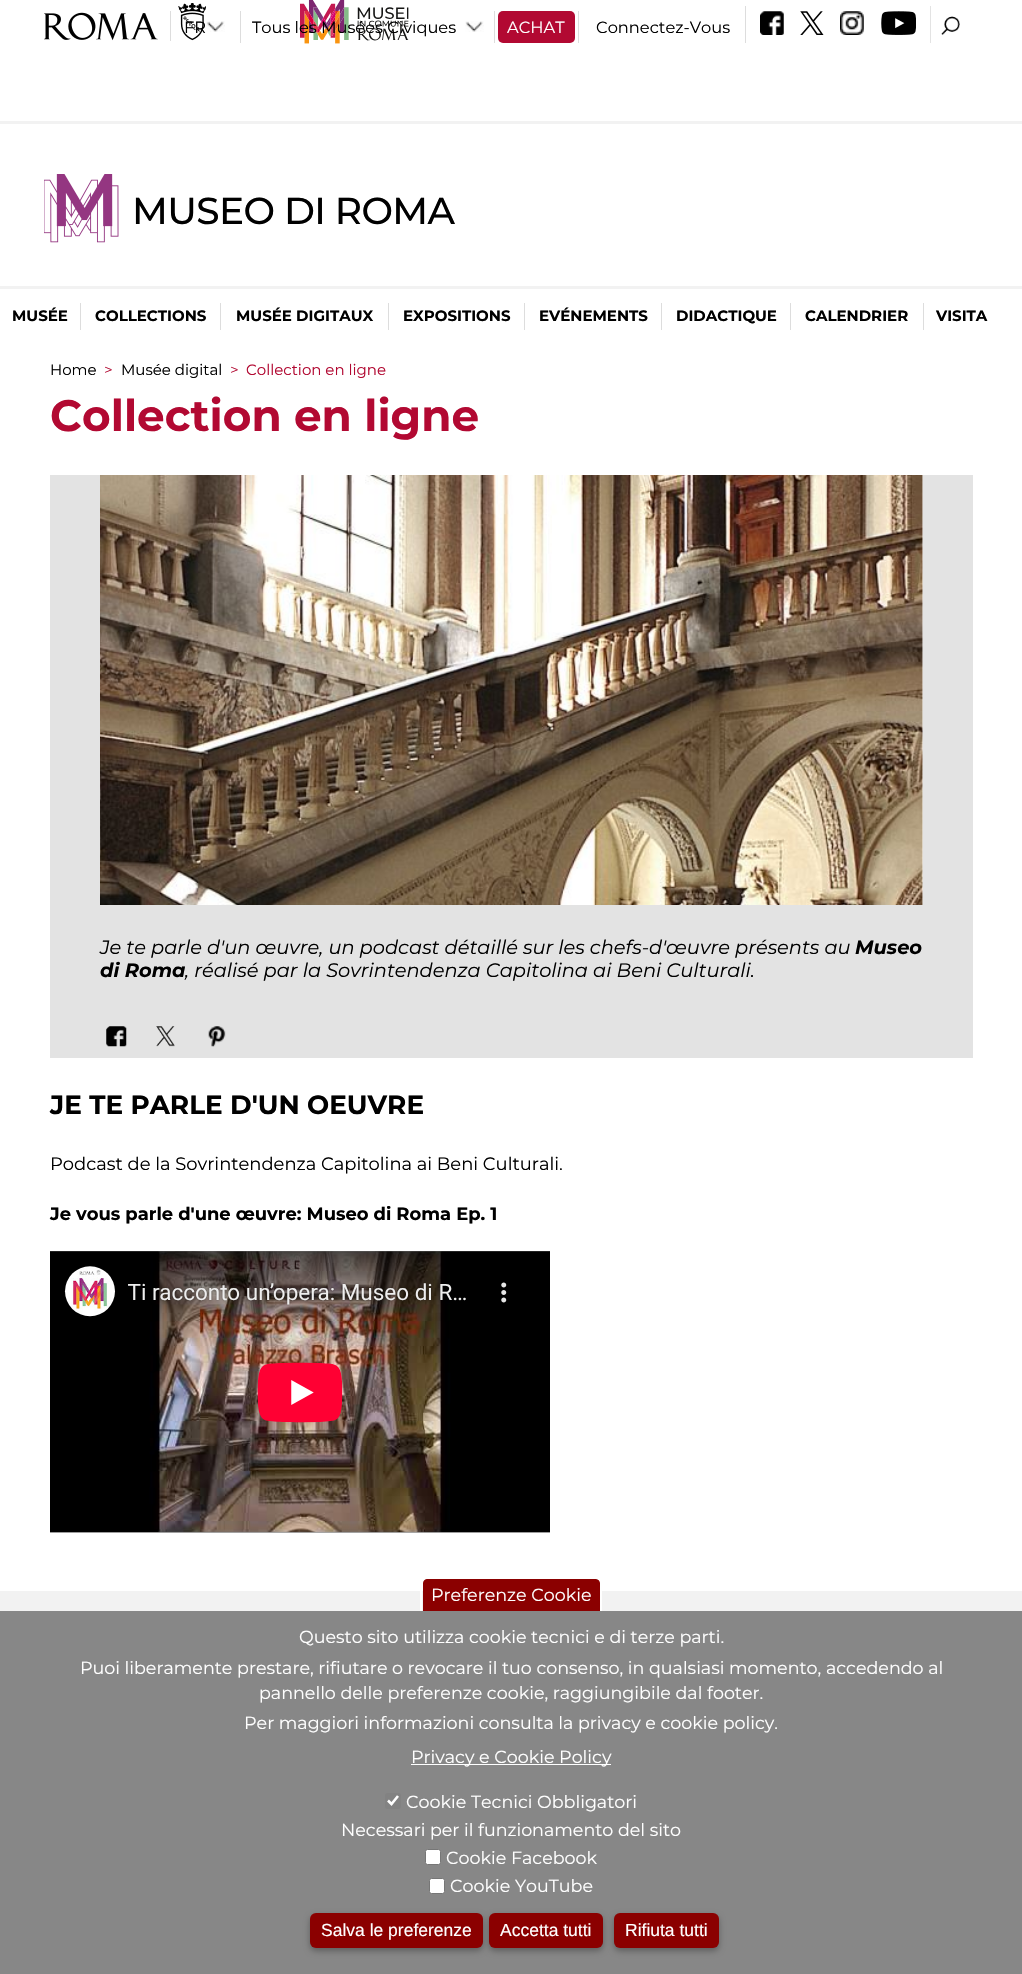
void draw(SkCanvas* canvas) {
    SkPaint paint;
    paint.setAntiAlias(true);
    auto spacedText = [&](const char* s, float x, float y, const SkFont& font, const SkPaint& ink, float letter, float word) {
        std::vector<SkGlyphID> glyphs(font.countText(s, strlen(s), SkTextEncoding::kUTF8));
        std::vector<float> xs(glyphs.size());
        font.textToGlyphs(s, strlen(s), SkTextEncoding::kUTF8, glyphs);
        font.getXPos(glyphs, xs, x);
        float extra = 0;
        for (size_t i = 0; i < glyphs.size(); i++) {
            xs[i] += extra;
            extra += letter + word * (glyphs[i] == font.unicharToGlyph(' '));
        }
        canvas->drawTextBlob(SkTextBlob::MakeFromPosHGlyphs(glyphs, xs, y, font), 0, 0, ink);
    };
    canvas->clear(0xFFFFFFFF);
    paint.setColor(0xFFF2F2F2);
    canvas->drawRect(SkRect::MakeXYWH(0, 1591, 1022, 20), paint);
    paint.setColor(0xFFDDDDDD);
    canvas->drawRect(SkRect::MakeXYWH(170, 11, 1, 30), paint);
    SkFont font1(fontMgr->matchFamilyStyle("Montserrat", SkFontStyle::Normal()), 16.25f);
    font1.setSubpixel(true);
    paint.setColor(0xFF000000);
    canvas->drawString("FR", 184, 33, font1, paint);
    canvas->drawImageRect(SkImages::DeferredFromEncodedData(SkData::MakeFromFileName("img1.png")), SkRect::MakeXYWH(44, 3, 162, 38), SkSamplingOptions());
    canvas->drawImageRect(SkImages::DeferredFromEncodedData(SkData::MakeFromFileName("img2.png")), SkRect::MakeXYWH(300, 0, 109, 44), SkSamplingOptions());
    paint.setColor(0xFFE3E3E3);
    canvas->drawRect(SkRect::MakeXYWH(930, 6, 1, 37), paint);
    paint.setColor(0xFFDDDDDD);
    canvas->drawRect(SkRect::MakeXYWH(745, 6, 1, 37), paint);
    canvas->drawImageRect(SkImages::DeferredFromEncodedData(SkData::MakeFromFileName("img3.png")), SkRect::MakeXYWH(760, 11, 24, 24), SkSamplingOptions());
    canvas->drawImageRect(SkImages::DeferredFromEncodedData(SkData::MakeFromFileName("img4.png")), SkRect::MakeXYWH(800, 11, 24, 24), SkSamplingOptions());
    canvas->drawImageRect(SkImages::DeferredFromEncodedData(SkData::MakeFromFileName("img5.png")), SkRect::MakeXYWH(840, 11, 24, 24), SkSamplingOptions());
    canvas->drawImageRect(SkImages::DeferredFromEncodedData(SkData::MakeFromFileName("img6.png")), SkRect::MakeXYWH(881, 11, 35, 24), SkSamplingOptions());
    canvas->drawImageRect(SkImages::DeferredFromEncodedData(SkData::MakeFromFileName("img7.png")), SkRect::MakeXYWH(941, 16, 19, 19), SkSamplingOptions());
    canvas->drawImageRect(SkImages::DeferredFromEncodedData(SkData::MakeFromFileName("img8.png")), SkRect::MakeXYWH(206, 21, 19, 11), SkSamplingOptions());
    canvas->drawRect(SkRect::MakeXYWH(240, 11, 1, 32), paint);
    paint.setColor(0xFF000000);
    canvas->drawString("Tous les Musées Civiques", 252, 33, font1, paint);
    canvas->drawImageRect(SkImages::DeferredFromEncodedData(SkData::MakeFromFileName("img9.png")), SkRect::MakeXYWH(465, 21, 19, 11), SkSamplingOptions());
    paint.setColor(0xFFDDDDDD);
    canvas->drawRect(SkRect::MakeXYWH(578, 11, 1, 32), paint);
    canvas->drawRect(SkRect::MakeXYWH(494, 11, 1, 32), paint);
    paint.setColor(0xFFB20932);
    canvas->drawRoundRect(SkRect::MakeXYWH(498, 11, 77, 32), 5, 5, paint);
    paint.setColor(0xFFFFFFFF);
    canvas->drawString("ACHAT", 507, 33, font1, paint);
    paint.setColor(0xFF000000);
    canvas->drawString("Connectez-Vous", 596, 33, font1, paint);
    paint.setColor(0xFFF2F2F2);
    canvas->drawPath(SkPathBuilder().moveTo(0, 121).lineTo(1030, 121).lineTo(1022, 124).lineTo(0, 124).close().detach(), paint);
    canvas->drawPath(SkPathBuilder().moveTo(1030, 289).lineTo(0, 289).lineTo(0, 286).lineTo(1022, 286).close().detach(), paint);
    canvas->drawImageRect(SkImages::DeferredFromEncodedData(SkData::MakeFromFileName("img10.png")), SkRect::MakeXYWH(44, 174, 75, 69), SkSamplingOptions());
    SkFont font2(fontMgr->matchFamilyStyle("Montserrat", SkFontStyle(500, SkFontStyle::kNormal_Width, SkFontStyle::kUpright_Slant)), 37.5f);
    font2.setSubpixel(true);
    paint.setColor(0xFF000000);
    spacedText("MUSEO DI ROMA", 132, 224, font2, paint, -0.6f, 0);
    SkFont font3(fontMgr->matchFamilyStyle("Montserrat", SkFontStyle::Bold()), 15);
    font3.setSubpixel(true);
    canvas->drawString("MUSÉE", 12, 321, font3, paint);
    paint.setColor(0xFFDDDDDD);
    canvas->drawRect(SkRect::MakeXYWH(80, 303, 1, 27), paint);
    paint.setColor(0xFF000000);
    canvas->drawString("COLLECTIONS", 95, 321, font3, paint);
    paint.setColor(0xFFDDDDDD);
    canvas->drawRect(SkRect::MakeXYWH(220, 303, 1, 27), paint);
    paint.setColor(0xFF000000);
    canvas->drawString("MUSÉE DIGITAUX", 236, 321, font3, paint);
    paint.setColor(0xFFDDDDDD);
    canvas->drawRect(SkRect::MakeXYWH(388, 303, 1, 27), paint);
    paint.setColor(0xFF000000);
    canvas->drawString("EXPOSITIONS", 403, 321, font3, paint);
    paint.setColor(0xFFDDDDDD);
    canvas->drawRect(SkRect::MakeXYWH(524, 303, 1, 27), paint);
    paint.setColor(0xFF000000);
    canvas->drawString("EVÉNEMENTS", 539, 321, font3, paint);
    paint.setColor(0xFFDDDDDD);
    canvas->drawRect(SkRect::MakeXYWH(661, 303, 1, 27), paint);
    paint.setColor(0xFF000000);
    canvas->drawString("DIDACTIQUE", 676, 321, font3, paint);
    paint.setColor(0xFFDDDDDD);
    canvas->drawRect(SkRect::MakeXYWH(790, 303, 1, 27), paint);
    paint.setColor(0xFF000000);
    canvas->drawString("CALENDRIER", 805, 321, font3, paint);
    paint.setColor(0xFFDDDDDD);
    canvas->drawRect(SkRect::MakeXYWH(923, 303, 1, 27), paint);
    paint.setColor(0xFF000000);
    canvas->drawString("VISITA", 936, 321, font3, paint);
    SkFont font4(fontMgr->matchFamilyStyle("Montserrat", SkFontStyle::Normal()), 15);
    font4.setSubpixel(true);
    canvas->drawString("Home", 50, 375, font4, paint);
    paint.setColor(0xFFB20932);
    canvas->drawString(">", 104, 375, font4, paint);
    paint.setColor(0xFF000000);
    canvas->drawString("Musée digital", 121, 375, font4, paint);
    paint.setColor(0xFFB20932);
    canvas->drawString(">", 230, 375, font4, paint);
    canvas->drawString("Collection en ligne", 246, 375, font4, paint);
    SkFont font5(fontMgr->matchFamilyStyle("Montserrat", SkFontStyle::Bold()), 43.75f);
    font5.setSubpixel(true);
    canvas->drawString("Collection en ligne", 50, 431, font5, paint);
    paint.setColor(0xFFE3E3E3);
    canvas->drawRect(SkRect::MakeXYWH(50, 475, 923, 583), paint);
    paint.setColor(0xFFFFFFFF);
    canvas->drawRect(SkRect::MakeXYWH(922, 475, 1, 430), paint);
    canvas->drawImageRect(SkImages::DeferredFromEncodedData(SkData::MakeFromFileName("img11.png")), SkRect::MakeXYWH(100, 475, 823, 430), SkSamplingOptions());
    SkFont font6(fontMgr->matchFamilyStyle("Montserrat", SkFontStyle::Italic()), 19.4f);
    font6.setSubpixel(true);
    paint.setColor(0xFF000000);
    canvas->drawString("Je te parle d'un œuvre, un podcast détaillé sur les chefs-d'œuvre présents au", 100, 954, font6, paint);
    SkFont font7(fontMgr->matchFamilyStyle("Montserrat", SkFontStyle::BoldItalic()), 19.4f);
    font7.setSubpixel(true);
    canvas->drawString("Museo", 855, 954, font7, paint);
    canvas->drawString("di Roma", 100, 977, font7, paint);
    canvas->drawString(", réalisé par la Sovrintendenza Capitolina ai Beni Culturali.", 185, 977, font6, paint);
    canvas->drawImageRect(SkImages::DeferredFromEncodedData(SkData::MakeFromFileName("img12.png")), SkRect::MakeXYWH(106, 1026, 21, 21), SkSamplingOptions());
    canvas->drawImageRect(SkImages::DeferredFromEncodedData(SkData::MakeFromFileName("img13.png")), SkRect::MakeXYWH(156, 1026, 19, 21), SkSamplingOptions());
    canvas->drawImageRect(SkImages::DeferredFromEncodedData(SkData::MakeFromFileName("img14.png")), SkRect::MakeXYWH(208, 1026, 18, 21), SkSamplingOptions());
    SkFont font8(fontMgr->matchFamilyStyle("Montserrat", SkFontStyle::Bold()), 26.25f);
    font8.setSubpixel(true);
    canvas->drawString("JE TE PARLE D'UN OEUVRE", 50, 1114, font8, paint);
    SkFont font9(fontMgr->matchFamilyStyle("Montserrat", SkFontStyle::Normal()), 17.9f);
    font9.setSubpixel(true);
    canvas->drawString("Podcast de la Sovrintendenza Capitolina ai Beni Culturali.", 50, 1170, font9, paint);
    SkFont font10(fontMgr->matchFamilyStyle("Montserrat", SkFontStyle::Bold()), 17.9f);
    font10.setSubpixel(true);
    canvas->drawString("Je vous parle d'une œuvre: Museo di Roma Ep. 1", 50, 1220, font10, paint);
    canvas->drawImageRect(SkImages::DeferredFromEncodedData(SkData::MakeFromFileName("img15.png")), SkRect::MakeXYWH(50, 1251, 500, 282), SkSamplingOptions());
    paint.setColor(0xFF878787);
    canvas->drawRect(SkRect::MakeXYWH(0, 1611, 1022, 363), paint);
    paint.setColor(0xFF8B0000);
    canvas->drawPath(SkPathBuilder().moveTo(427, 1579).lineTo(596, 1579).cubicTo(598, 1579, 600, 1581, 600, 1583).lineTo(600, 1611).lineTo(423, 1611).lineTo(423, 1583).cubicTo(423, 1581, 425, 1579, 427, 1579).close().detach(), paint);
    paint.setColor(0xFFFFFFFF);
    canvas->drawPath(SkPathBuilder(SkPathFillType::kEvenOdd).moveTo(426, 1576).lineTo(596, 1576).cubicTo(599, 1576, 602, 1579, 602, 1582).lineTo(602, 1611).lineTo(420, 1611).lineTo(420, 1582).cubicTo(420, 1579, 423, 1576, 426, 1576).close().moveTo(426, 1579).lineTo(596, 1579).cubicTo(598, 1579, 600, 1580, 600, 1582).lineTo(600, 1611).lineTo(422, 1611).lineTo(422, 1582).cubicTo(422, 1580, 424, 1579, 426, 1579).close().detach(), paint);
    SkFont font11(fontMgr->matchFamilyStyle("Montserrat", SkFontStyle::Normal()), 17.5f);
    font11.setSubpixel(true);
    canvas->drawString("Preferenze Cookie", 431, 1601, font11, paint);
    canvas->drawString("Questo sito utilizza cookie tecnici e di terze parti.", 299, 1643, font11, paint);
    canvas->drawString("Puoi liberamente prestare, rifiutare o revocare il tuo consenso, in qualsiasi momento, accedendo al", 80, 1674, font11, paint);
    canvas->drawString("pannello delle preferenze cookie, raggiungibile dal footer.", 259, 1699, font11, paint);
    canvas->drawString("Per maggiori informazioni consulta la privacy e cookie policy.", 244, 1729, font11, paint);
    canvas->drawRect(SkRect::MakeXYWH(411, 1764, 200, 1), paint);
    canvas->drawString("Privacy e Cookie Policy", 411, 1763, font11, paint);
    paint.setColor(0xFF828282);
    canvas->drawRoundRect(SkRect::MakeXYWH(385, 1793, 16, 16), 2.5f, 2.5f, paint);
    paint.setStyle(SkPaint::kStroke_Style);
    paint.setStrokeWidth(2.6f);
    paint.setColor(0xFFFFFFFF);
    canvas->drawPath(SkPathBuilder().moveTo(388, 1800.5f).lineTo(391.5f, 1804).lineTo(398, 1796).detach(), paint);
    paint.setStyle(SkPaint::kFill_Style);
    canvas->drawString("Cookie Tecnici Obbligatori", 406, 1808, font11, paint);
    canvas->drawString("Necessari per il funzionamento del sito", 341, 1836, font11, paint);
    canvas->drawRoundRect(SkRect::MakeXYWH(425.5f, 1849.5f, 15, 15), 2, 2, paint);
    paint.setStyle(SkPaint::kStroke_Style);
    paint.setStrokeWidth(1);
    paint.setColor(0xFF767676);
    canvas->drawRoundRect(SkRect::MakeXYWH(425.5f, 1849.5f, 15, 15), 2, 2, paint);
    paint.setStyle(SkPaint::kFill_Style);
    paint.setColor(0xFFFFFFFF);
    canvas->drawString("Cookie Facebook", 446, 1864, font11, paint);
    canvas->drawRoundRect(SkRect::MakeXYWH(429.5f, 1878.5f, 15, 15), 2, 2, paint);
    paint.setStyle(SkPaint::kStroke_Style);
    paint.setColor(0xFF767676);
    canvas->drawRoundRect(SkRect::MakeXYWH(429.5f, 1878.5f, 15, 15), 2, 2, paint);
    paint.setStyle(SkPaint::kFill_Style);
    paint.setColor(0xFFFFFFFF);
    canvas->drawString("Cookie YouTube", 450, 1892, font11, paint);
    paint.setColor(0x4D000000);
    paint.setMaskFilter(SkMaskFilter::MakeBlur(kNormal_SkBlurStyle, 3));
    canvas->drawRoundRect(SkRect::MakeXYWH(310, 1916, 173, 35), 6, 6, paint);
    paint.setMaskFilter(nullptr);
    paint.setColor(0xFF8B0000);
    canvas->drawRoundRect(SkRect::MakeXYWH(310, 1913, 173, 35), 6, 6, paint);
    SkFont font12(fontMgr->matchFamilyStyle("Liberation Sans", SkFontStyle::Normal()), 17.5f);
    font12.setSubpixel(true);
    paint.setColor(0xFFFFFFFF);
    canvas->drawString("Salva le preferenze", 321, 1936, font12, paint);
    paint.setColor(0x4D000000);
    paint.setMaskFilter(SkMaskFilter::MakeBlur(kNormal_SkBlurStyle, 3));
    canvas->drawRoundRect(SkRect::MakeXYWH(489, 1916, 114, 35), 6, 6, paint);
    paint.setMaskFilter(nullptr);
    paint.setColor(0xFF8B0000);
    canvas->drawRoundRect(SkRect::MakeXYWH(489, 1913, 114, 35), 6, 6, paint);
    paint.setColor(0xFFFFFFFF);
    canvas->drawString("Accetta tutti", 500, 1936, font12, paint);
    paint.setColor(0x4D000000);
    paint.setMaskFilter(SkMaskFilter::MakeBlur(kNormal_SkBlurStyle, 3));
    canvas->drawRoundRect(SkRect::MakeXYWH(614, 1916, 105, 35), 6, 6, paint);
    paint.setMaskFilter(nullptr);
    paint.setColor(0xFF8B0000);
    canvas->drawRoundRect(SkRect::MakeXYWH(614, 1913, 105, 35), 6, 6, paint);
    paint.setColor(0xFFFFFFFF);
    canvas->drawString("Rifiuta tutti", 625, 1936, font12, paint);
}
